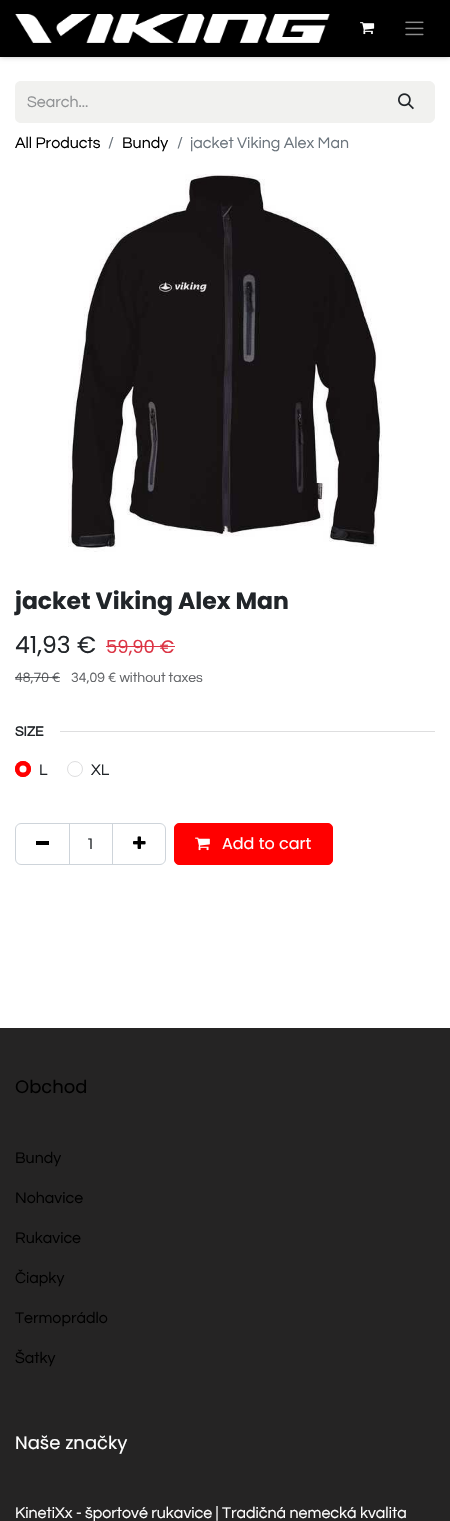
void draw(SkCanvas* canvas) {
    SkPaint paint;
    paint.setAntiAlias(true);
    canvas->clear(0xFFFFFFFF);
    paint.setColor(0x40000000);
    paint.setMaskFilter(SkMaskFilter::MakeBlur(kNormal_SkBlurStyle, 2.5f));
    canvas->drawRect(SkRect::MakeXYWH(0, 0, 450, 57), paint);
    paint.setMaskFilter(nullptr);
    paint.setColor(0xFF000000);
    canvas->drawRect(SkRect::MakeXYWH(0, 0, 450, 57), paint);
    canvas->drawImageRect(SkImages::DeferredFromEncodedData(SkData::MakeFromFileName("img1.png")), SkRect::MakeXYWH(15, 14, 315, 29), SkSamplingOptions());
    canvas->drawImageRect(SkImages::DeferredFromEncodedData(SkData::MakeFromFileName("img2.png")), SkRect::MakeXYWH(360, 22, 15, 13), SkSamplingOptions());
    canvas->drawImageRect(SkImages::DeferredFromEncodedData(SkData::MakeFromFileName("img3.png")), SkRect::MakeXYWH(405, 21, 19, 15), SkSamplingOptions());
    paint.setColor(0xFFF1F1EF);
    canvas->drawPath(SkPathBuilder().moveTo(21, 81).lineTo(378, 81).lineTo(378, 123).lineTo(21, 123).cubicTo(17.5f, 123, 15, 120.5f, 15, 117).lineTo(15, 87).cubicTo(15, 83.5f, 17.5f, 81, 21, 81).close().detach(), paint);
    SkFont font1(fontMgr->matchFamilyStyle("Questrial", SkFontStyle::Normal()), 16);
    font1.setSubpixel(true);
    paint.setColor(0xFF909294);
    canvas->drawString("Search...", 27, 107, font1, paint);
    paint.setColor(0xFFF1F1EF);
    canvas->drawPath(SkPathBuilder().moveTo(377.5f, 81.5f).lineTo(429, 81.5f).cubicTo(432, 81.5f, 434.5f, 84, 434.5f, 87).lineTo(434.5f, 117).cubicTo(434.5f, 120, 432, 122.5f, 429, 122.5f).lineTo(377.5f, 122.5f).close().detach(), paint);
    paint.setStyle(SkPaint::kStroke_Style);
    paint.setStrokeWidth(1);
    canvas->drawPath(SkPathBuilder().moveTo(377.5f, 81.5f).lineTo(429, 81.5f).cubicTo(432, 81.5f, 434.5f, 84, 434.5f, 87).lineTo(434.5f, 117).cubicTo(434.5f, 120, 432, 122.5f, 429, 122.5f).lineTo(377.5f, 122.5f).close().detach(), paint);
    canvas->drawImageRect(SkImages::DeferredFromEncodedData(SkData::MakeFromFileName("img4.png")), SkRect::MakeXYWH(398, 93, 16, 17), SkSamplingOptions());
    paint.setStyle(SkPaint::kFill_Style);
    paint.setColor(0xFF000000);
    canvas->drawString("All Products", 15, 148, font1, paint);
    paint.setColor(0xFF6C757D);
    canvas->drawString("/", 108, 148, font1, paint);
    paint.setColor(0xFF000000);
    canvas->drawString("Bundy", 122, 148, font1, paint);
    paint.setColor(0xFF6C757D);
    canvas->drawString("/", 177, 148, font1, paint);
    canvas->drawString("jacket Viking Alex Man", 190, 148, font1, paint);
    canvas->drawImageRect(SkImages::DeferredFromEncodedData(SkData::MakeFromFileName("img5.png")), SkRect::MakeXYWH(68, 174, 314, 378), SkSamplingOptions());
    SkFont font2(fontMgr->matchFamilyStyle("Poppins", SkFontStyle::Bold()), 23.5f);
    font2.setSubpixel(true);
    paint.setColor(0xFF212529);
    canvas->drawString("jacket Viking Alex Man", 15, 609, font2, paint);
    SkFont font3(fontMgr->matchFamilyStyle("Poppins", SkFontStyle::Normal()), 23.5f);
    font3.setSubpixel(true);
    canvas->drawString("41,93 €", 15, 653, font3, paint);
    SkFont font4(fontMgr->matchFamilyStyle("Poppins", SkFontStyle::Normal()), 18);
    font4.setSubpixel(true);
    paint.setColor(0xFFDC3545);
    canvas->drawString("59,90 €", 106, 653, font4, paint);
    canvas->drawRect(SkRect::MakeXYWH(106, 646, 69, 1), paint);
    SkFont font5(fontMgr->matchFamilyStyle("Questrial", SkFontStyle::Normal()), 14);
    font5.setSubpixel(true);
    paint.setColor(0xFF646669);
    canvas->drawString("48,70 €", 15, 682, font5, paint);
    paint.setColor(0xB3212529);
    canvas->drawRect(SkRect::MakeXYWH(15, 677, 34, 1), paint);
    canvas->drawRect(SkRect::MakeXYWH(49, 677, 11, 1), paint);
    paint.setColor(0xFF646669);
    canvas->drawString("34,09 € without taxes", 71, 682, font5, paint);
    SkFont font6(fontMgr->matchFamilyStyle("Questrial", SkFontStyle::Bold()), 14);
    font6.setSubpixel(true);
    paint.setColor(0xFF212529);
    canvas->drawString("SIZE", 15, 736, font6, paint);
    paint.setColor(0xFFDEDEDF);
    canvas->drawRect(SkRect::MakeXYWH(60, 731, 375, 1), paint);
    paint.setColor(0xFFFF0000);
    canvas->drawCircle(23, 769, 8, paint);
    paint.setColor(0xFFFFFFFF);
    canvas->drawCircle(23, 769, 3.5f, paint);
    paint.setStyle(SkPaint::kStroke_Style);
    paint.setColor(0xFFFF0000);
    canvas->drawCircle(23, 769, 7.5f, paint);
    paint.setStyle(SkPaint::kFill_Style);
    paint.setColor(0xFF212529);
    canvas->drawString("L", 39, 775, font1, paint);
    paint.setStyle(SkPaint::kStroke_Style);
    paint.setColor(0xFFDEDEDF);
    canvas->drawCircle(75, 769, 7.5f, paint);
    paint.setStyle(SkPaint::kFill_Style);
    paint.setColor(0xFF212529);
    canvas->drawString("XL", 91, 775, font1, paint);
    paint.setStyle(SkPaint::kStroke_Style);
    paint.setColor(0xFFCED4DA);
    canvas->drawRect(SkRect::MakeXYWH(69.5f, 823.5f, 43, 41), paint);
    canvas->drawPath(SkPathBuilder().moveTo(21, 823.5f).lineTo(69.5f, 823.5f).lineTo(69.5f, 864.5f).lineTo(21, 864.5f).cubicTo(18, 864.5f, 15.5f, 862, 15.5f, 859).lineTo(15.5f, 829).cubicTo(15.5f, 826, 18, 823.5f, 21, 823.5f).close().detach(), paint);
    paint.setStyle(SkPaint::kFill_Style);
    paint.setColor(0xFF000000);
    canvas->drawRect(SkRect::MakeXYWH(36, 841, 13, 4), paint);
    paint.setColor(0xFF212529);
    canvas->drawString("1", 86, 849, font1, paint);
    paint.setStyle(SkPaint::kStroke_Style);
    paint.setColor(0xFFCED4DA);
    canvas->drawPath(SkPathBuilder().moveTo(112.5f, 823.5f).lineTo(160, 823.5f).cubicTo(163, 823.5f, 165.5f, 826, 165.5f, 829).lineTo(165.5f, 859).cubicTo(165.5f, 862, 163, 864.5f, 160, 864.5f).lineTo(112.5f, 864.5f).close().detach(), paint);
    canvas->drawImageRect(SkImages::DeferredFromEncodedData(SkData::MakeFromFileName("img6.png")), SkRect::MakeXYWH(133, 836, 13, 13), SkSamplingOptions());
    paint.setStyle(SkPaint::kFill_Style);
    paint.setColor(0xFFFF0000);
    canvas->drawRoundRect(SkRect::MakeXYWH(174.5f, 823.5f, 158, 41), 4.5f, 4.5f, paint);
    paint.setStyle(SkPaint::kStroke_Style);
    canvas->drawRoundRect(SkRect::MakeXYWH(174.5f, 823.5f, 158, 41), 4.5f, 4.5f, paint);
    canvas->drawImageRect(SkImages::DeferredFromEncodedData(SkData::MakeFromFileName("img7.png")), SkRect::MakeXYWH(195, 837, 15, 14), SkSamplingOptions());
    SkFont font7(fontMgr->matchFamilyStyle("Poppins", SkFontStyle::Normal()), 16);
    font7.setSubpixel(true);
    paint.setStyle(SkPaint::kFill_Style);
    paint.setColor(0xFFFFFFFF);
    canvas->drawString("Add to cart", 222, 849, font7, paint);
    paint.setColor(0xFF252424);
    canvas->drawRect(SkRect::MakeXYWH(0, 1028, 450, 493), paint);
    paint.setColor(0xFF000000);
    canvas->drawString("Obchod", 15, 1093, font4, paint);
    canvas->drawString("Bundy", 15, 1163, font1, paint);
    canvas->drawString("Nohavice", 15, 1203, font1, paint);
    canvas->drawString("Rukavice", 15, 1243, font1, paint);
    canvas->drawString("Čiapky", 15, 1283, font1, paint);
    canvas->drawString("Termoprádlo", 15, 1323, font1, paint);
    canvas->drawString("Šatky", 15, 1363, font1, paint);
    paint.setColor(0xFFFFFFFF);
    canvas->drawString("Naše značky", 15, 1449, font4, paint);
    canvas->drawString("KinetiXx - športové rukavice | Tradičná nemecká kvalita", 15, 1518, font1, paint);
}
